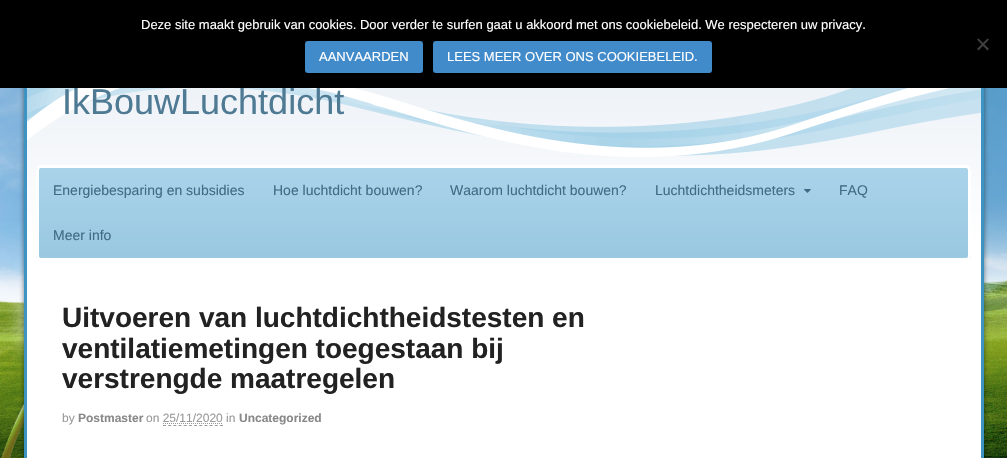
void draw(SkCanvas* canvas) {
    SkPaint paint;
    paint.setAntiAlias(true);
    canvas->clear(0xFFFFFFFF);
    canvas->drawImageRect(SkImages::DeferredFromEncodedData(SkData::MakeFromFileName("img1.png")), SkRect::MakeXYWH(0, 88, 1007, 370), SkSamplingOptions());
    paint.setColor(0x80000000);
    paint.setMaskFilter(SkMaskFilter::MakeBlur(kNormal_SkBlurStyle, 2.5f));
    canvas->drawRoundRect(SkRect::MakeXYWH(24, 40, 960, 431), 5, 5, paint);
    paint.setMaskFilter(nullptr);
    {
        const SkColor colors[] = {0xFFE9EFF5, 0xFFFFFFFF};
        const float stops[] = {0, 0.17f};
        const SkPoint ends[] = {{504, 44}, {504, 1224}};
        paint.setShader(SkGradientShader::MakeLinear(ends, colors, stops, 2, SkTileMode::kClamp));
        paint.setAlpha(255);
    }
    canvas->drawRect(SkRect::MakeXYWH(27, 88, 954, 370), paint);
    paint.setStyle(SkPaint::kStroke_Style);
    paint.setStrokeWidth(3);
    paint.setShader(nullptr);
    paint.setColor(0xFF3D93C2);
    canvas->drawRect(SkRect::MakeXYWH(25.5f, 42.5f, 957, 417), paint);
    canvas->drawImageRect(SkImages::DeferredFromEncodedData(SkData::MakeFromFileName("img2.png")), SkRect::MakeXYWH(27, 88, 954, 69), SkSamplingOptions());
    SkFont font1(fontMgr->matchFamilyStyle("Liberation Sans", SkFontStyle::Normal()), 36);
    font1.setSubpixel(true);
    paint.setStyle(SkPaint::kFill_Style);
    paint.setColor(0xFF4E7A94);
    canvas->drawString("IkBouwLuchtdicht", 62, 114, font1, paint);
    paint.setColor(0xFF000000);
    canvas->drawRect(SkRect::MakeXYWH(0, 0, 1007, 88), paint);
    SkFont font2(fontMgr->matchFamilyStyle("Liberation Sans", SkFontStyle::Normal()), 13);
    font2.setSubpixel(true);
    paint.setColor(0xFFFFFFFF);
    canvas->drawString("Deze site maakt gebruik van cookies. Door verder te surfen gaat u akkoord met ons cookiebeleid. We respecteren uw privacy.", 141, 29, font2, paint);
    paint.setColor(0xFF404040);
    canvas->drawPath(SkPathBuilder().moveTo(987.5f, 38.5f).lineTo(989, 39.5f).lineTo(978.5f, 50.5f).lineTo(977, 49).close().detach(), paint);
    canvas->drawPath(SkPathBuilder().moveTo(977, 39.5f).lineTo(978.5f, 38.5f).lineTo(989, 49).lineTo(987.5f, 50.5f).close().detach(), paint);
    paint.setColor(0xFF428BCA);
    canvas->drawRoundRect(SkRect::MakeXYWH(305, 41, 118, 32), 3, 3, paint);
    paint.setColor(0xFFFFFFFF);
    canvas->drawString("AANVAARDEN", 319, 61, font2, paint);
    paint.setColor(0xFF428BCA);
    canvas->drawRoundRect(SkRect::MakeXYWH(433, 41, 279, 32), 3, 3, paint);
    paint.setColor(0xFFFFFFFF);
    canvas->drawString("LEES MEER OVER ONS COOKIEBELEID.", 447, 61, font2, paint);
    canvas->save();
    canvas->clipPath(SkPathBuilder().moveTo(41, 165).lineTo(966, 165).cubicTo(969, 165, 971, 167, 971, 170).lineTo(971, 256).cubicTo(971, 259, 969, 261, 966, 261).lineTo(41, 261).cubicTo(38, 261, 36, 259, 36, 256).lineTo(36, 170).cubicTo(36, 167, 38, 165, 41, 165).close().detach(), true);
    {
        const SkColor colors[] = {0xFFA9D3E9, 0xFF9AC8E1};
        const float stops[] = {0, 1};
        const SkPoint ends[] = {{504, 168}, {504, 258}};
        paint.setShader(SkGradientShader::MakeLinear(ends, colors, stops, 2, SkTileMode::kClamp));
        paint.setAlpha(255);
    }
    canvas->drawRect(SkRect::MakeXYWH(36, 168, 935, 90), paint);
    canvas->restore();
    paint.setStyle(SkPaint::kStroke_Style);
    paint.setShader(nullptr);
    paint.setColor(0xFFFFFFFF);
    canvas->drawRoundRect(SkRect::MakeXYWH(37.5f, 166.5f, 932, 93), 3.5f, 3.5f, paint);
    SkFont font3(fontMgr->matchFamilyStyle("Liberation Sans", SkFontStyle::Normal()), 14);
    font3.setSubpixel(true);
    paint.setStyle(SkPaint::kFill_Style);
    paint.setColor(0xFF406B84);
    canvas->drawString("Energiebesparing en subsidies", 53, 195, font3, paint);
    canvas->drawString("Hoe luchtdicht bouwen?", 273, 195, font3, paint);
    canvas->drawString("Waarom luchtdicht bouwen?", 450, 195, font3, paint);
    canvas->drawString("Luchtdichtheidsmeters", 655, 195, font3, paint);
    canvas->drawImageRect(SkImages::DeferredFromEncodedData(SkData::MakeFromFileName("img3.png")), SkRect::MakeXYWH(804, 189, 7, 4), SkSamplingOptions());
    canvas->drawString("FAQ", 839, 195, font3, paint);
    canvas->drawString("Meer info", 53, 240, font3, paint);
    SkFont font4(fontMgr->matchFamilyStyle("Liberation Sans", SkFontStyle::Bold()), 28);
    font4.setSubpixel(true);
    paint.setColor(0xFF222222);
    canvas->drawString("Uitvoeren van luchtdichtheidstesten en", 62, 327, font4, paint);
    canvas->drawString("ventilatiemetingen toegestaan bij", 62, 358, font4, paint);
    canvas->drawString("verstrengde maatregelen", 62, 388, font4, paint);
    SkFont font5(fontMgr->matchFamilyStyle("Liberation Sans", SkFontStyle::Normal()), 12);
    font5.setSubpixel(true);
    paint.setColor(0xFF999999);
    canvas->drawString("by", 62, 422, font5, paint);
    SkFont font6(fontMgr->matchFamilyStyle("Liberation Sans", SkFontStyle::Bold()), 12);
    font6.setSubpixel(true);
    paint.setColor(0xFF888888);
    canvas->drawString("Postmaster", 78, 422, font6, paint);
    paint.setColor(0xFF999999);
    canvas->drawString("on 25/11/2020 in", 146, 422, font5, paint);
    paint.setColor(0xFF888888);
    canvas->drawString("Uncategorized", 239, 422, font6, paint);
    paint.setStyle(SkPaint::kStroke_Style);
    paint.setStrokeWidth(1);
    paint.setColor(0xFF999999);
    paint.setPathEffect(SkDashPathEffect::Make({{1, 1}}, 0));
    canvas->drawPath(SkPathBuilder().moveTo(163, 423.5f).lineTo(223, 423.5f).detach(), paint);
    paint.setPathEffect(nullptr);
    paint.setPathEffect(SkDashPathEffect::Make({{3, 2.18f}}, 0));
    canvas->drawPath(SkPathBuilder().moveTo(163, 425.5f).lineTo(223, 425.5f).detach(), paint);
    paint.setPathEffect(nullptr);
}
